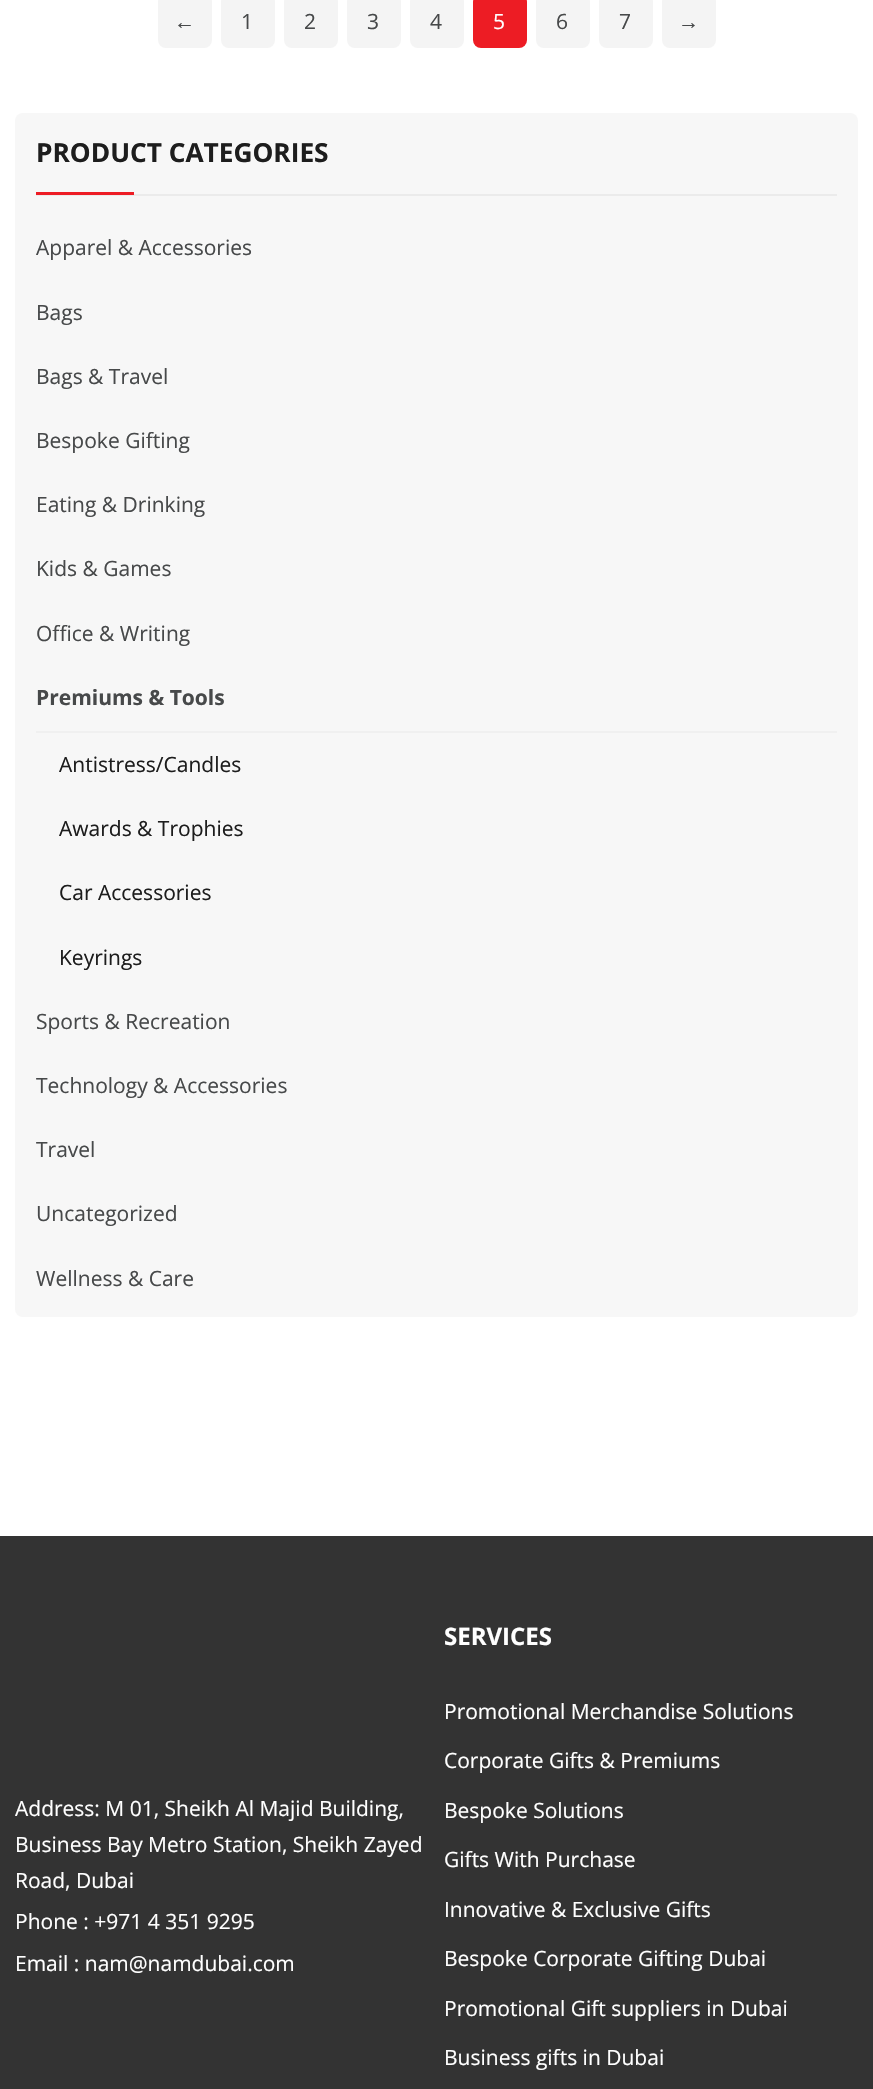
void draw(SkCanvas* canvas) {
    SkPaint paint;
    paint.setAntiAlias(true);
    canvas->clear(0xFFFFFFFF);
    paint.setColor(0xFFF4F4F4);
    canvas->drawRoundRect(SkRect::MakeXYWH(158, -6, 54, 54), 8, 8, paint);
    SkFont font1(fontMgr->matchFamilyStyle("Liberation Serif", SkFontStyle::Normal()), 21);
    font1.setSubpixel(true);
    paint.setColor(0xFF47494A);
    canvas->drawString("←", 174, 29, font1, paint);
    paint.setColor(0xFFF4F4F4);
    canvas->drawRoundRect(SkRect::MakeXYWH(221, -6, 54, 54), 8, 8, paint);
    SkFont font2(fontMgr->matchFamilyStyle("Open Sans", SkFontStyle::Normal()), 21);
    font2.setSubpixel(true);
    paint.setColor(0xFF47494A);
    canvas->drawString("1", 241, 29, font2, paint);
    paint.setColor(0xFFF4F4F4);
    canvas->drawRoundRect(SkRect::MakeXYWH(284, -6, 54, 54), 8, 8, paint);
    paint.setColor(0xFF47494A);
    canvas->drawString("2", 304, 29, font2, paint);
    paint.setColor(0xFFF4F4F4);
    canvas->drawRoundRect(SkRect::MakeXYWH(347, -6, 54, 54), 8, 8, paint);
    paint.setColor(0xFF47494A);
    canvas->drawString("3", 367, 29, font2, paint);
    paint.setColor(0xFFF4F4F4);
    canvas->drawRoundRect(SkRect::MakeXYWH(410, -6, 54, 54), 8, 8, paint);
    paint.setColor(0xFF47494A);
    canvas->drawString("4", 430, 29, font2, paint);
    paint.setColor(0xFFED1C24);
    canvas->drawRoundRect(SkRect::MakeXYWH(473, -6, 54, 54), 8, 8, paint);
    paint.setColor(0xFFFFFFFF);
    canvas->drawString("5", 493, 29, font2, paint);
    paint.setColor(0xFFF4F4F4);
    canvas->drawRoundRect(SkRect::MakeXYWH(536, -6, 54, 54), 8, 8, paint);
    paint.setColor(0xFF47494A);
    canvas->drawString("6", 556, 29, font2, paint);
    paint.setColor(0xFFF4F4F4);
    canvas->drawRoundRect(SkRect::MakeXYWH(599, -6, 54, 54), 8, 8, paint);
    paint.setColor(0xFF47494A);
    canvas->drawString("7", 619, 29, font2, paint);
    paint.setColor(0xFFF4F4F4);
    canvas->drawRoundRect(SkRect::MakeXYWH(662, -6, 54, 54), 8, 8, paint);
    paint.setColor(0xFF47494A);
    canvas->drawString("→", 678, 29, font1, paint);
    paint.setColor(0xFFF7F7F7);
    canvas->drawRoundRect(SkRect::MakeXYWH(15, 113, 843, 1204), 8, 8, paint);
    paint.setColor(0xFFEBEBEB);
    canvas->drawRect(SkRect::MakeXYWH(36, 194, 801, 2), paint);
    SkFont font3(fontMgr->matchFamilyStyle("Open Sans", SkFontStyle::Bold()), 26.25f);
    font3.setSubpixel(true);
    paint.setColor(0xFF1D1D1D);
    canvas->drawString("PRODUCT CATEGORIES", 36, 162, font3, paint);
    paint.setColor(0xFFED1C24);
    canvas->drawRect(SkRect::MakeXYWH(36, 192, 98, 3), paint);
    paint.setColor(0xFF47494A);
    canvas->drawString("Apparel & Accessories", 36, 255, font2, paint);
    canvas->drawString("Bags", 36, 320, font2, paint);
    canvas->drawString("Bags & Travel", 36, 384, font2, paint);
    canvas->drawString("Bespoke Gifting", 36, 448, font2, paint);
    canvas->drawString("Eating & Drinking", 36, 512, font2, paint);
    canvas->drawString("Kids & Games", 36, 576, font2, paint);
    canvas->drawString("Office & Writing", 36, 641, font2, paint);
    SkFont font4(fontMgr->matchFamilyStyle("Open Sans", SkFontStyle::Bold()), 21);
    font4.setSubpixel(true);
    canvas->drawString("Premiums & Tools", 36, 705, font4, paint);
    paint.setColor(0xFFF0F0F0);
    canvas->drawRect(SkRect::MakeXYWH(36, 731, 801, 2), paint);
    paint.setColor(0xFF1D1D1D);
    canvas->drawString("Antistress/Candles", 59, 772, font2, paint);
    canvas->drawString("Awards & Trophies", 59, 836, font2, paint);
    canvas->drawString("Car Accessories", 59, 900, font2, paint);
    canvas->drawString("Keyrings", 59, 965, font2, paint);
    paint.setColor(0xFF47494A);
    canvas->drawString("Sports & Recreation", 36, 1029, font2, paint);
    canvas->drawString("Technology & Accessories", 36, 1093, font2, paint);
    canvas->drawString("Travel", 36, 1157, font2, paint);
    canvas->drawString("Uncategorized", 36, 1221, font2, paint);
    canvas->drawString("Wellness & Care", 36, 1286, font2, paint);
    paint.setColor(0xFF333333);
    canvas->drawRect(SkRect::MakeXYWH(0, 1536, 873, 553), paint);
    paint.setColor(0xFFFFFFFF);
    canvas->drawString("Address: M 01, Sheikh Al Majid Building,", 15, 1816, font2, paint);
    canvas->drawString("Business Bay Metro Station, Sheikh Zayed", 15, 1852, font2, paint);
    canvas->drawString("Road, Dubai", 15, 1888, font2, paint);
    canvas->drawString("Phone : +971 4 351 9295", 15, 1929, font2, paint);
    canvas->drawString("Email : nam@namdubai.com", 15, 1971, font2, paint);
    SkFont font5(fontMgr->matchFamilyStyle("Open Sans", SkFontStyle::Bold()), 24);
    font5.setSubpixel(true);
    canvas->drawString("SERVICES", 444, 1645, font5, paint);
    canvas->drawString("Promotional Merchandise Solutions", 444, 1719, font2, paint);
    canvas->drawString("Corporate Gifts & Premiums", 444, 1768, font2, paint);
    canvas->drawString("Bespoke Solutions", 444, 1818, font2, paint);
    canvas->drawString("Gifts With Purchase", 444, 1867, font2, paint);
    canvas->drawString("Innovative & Exclusive Gifts", 444, 1917, font2, paint);
    canvas->drawString("Bespoke Corporate Gifting Dubai", 444, 1966, font2, paint);
    canvas->drawString("Promotional Gift suppliers in Dubai", 444, 2016, font2, paint);
    canvas->drawString("Business gifts in Dubai", 444, 2065, font2, paint);
}
